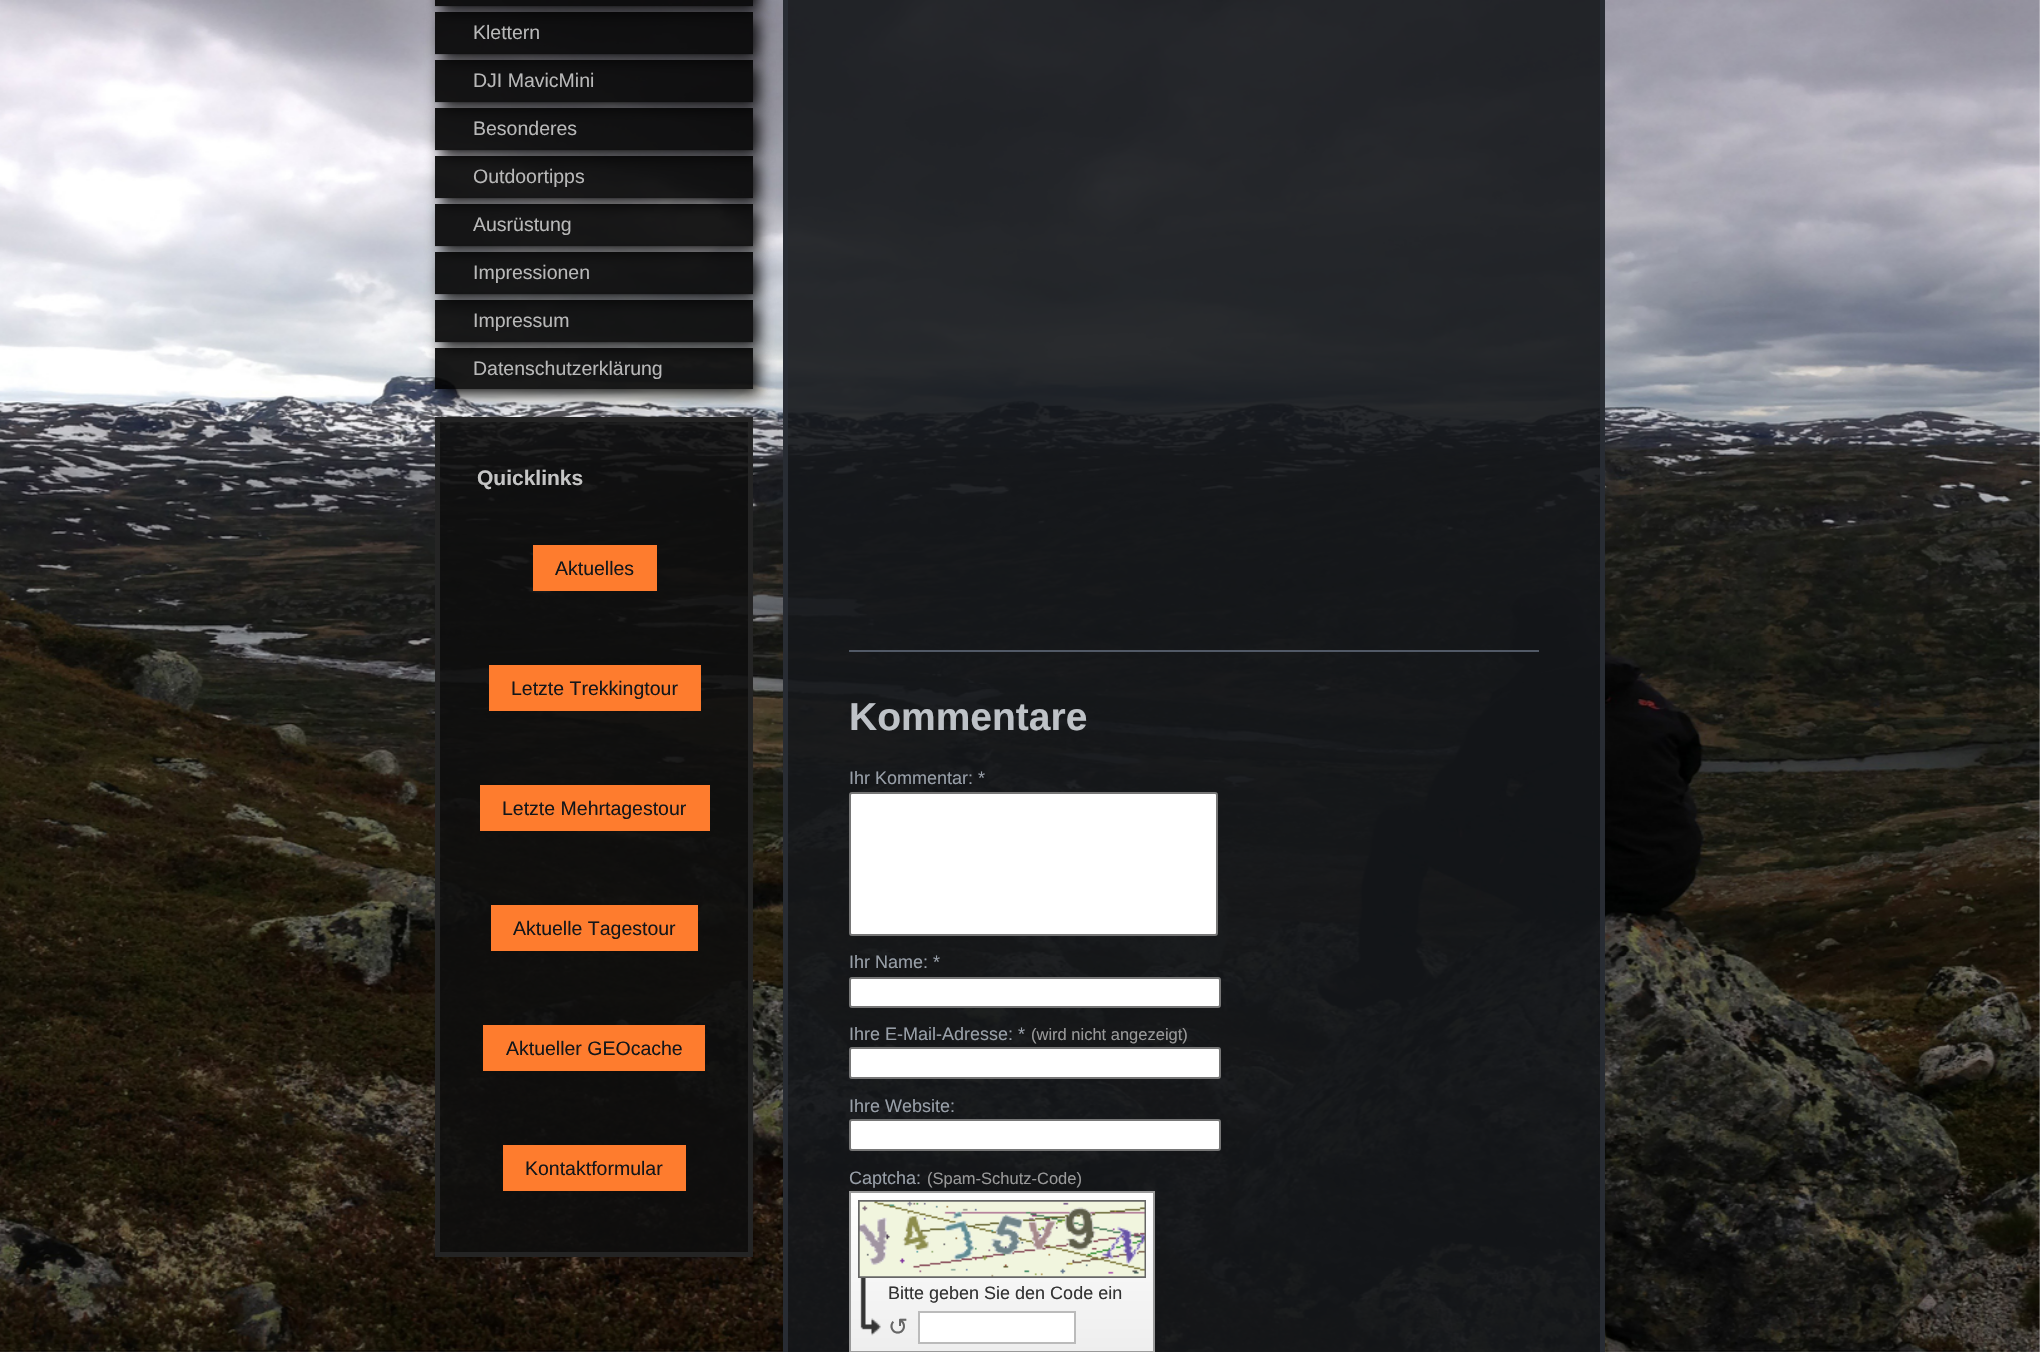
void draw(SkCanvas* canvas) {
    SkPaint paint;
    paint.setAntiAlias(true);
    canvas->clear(0xFFFFFFFF);
    canvas->drawImageRect(SkImages::DeferredFromEncodedData(SkData::MakeFromFileName("img1.png")), SkRect::MakeXYWH(0, 0, 2040, 1352), SkSamplingOptions());
    canvas->save();
    canvas->clipPath(SkPathBuilder(SkPathFillType::kEvenOdd).moveTo(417, 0).lineTo(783, 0).lineTo(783, 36).lineTo(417, 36).close().moveTo(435, -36).lineTo(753, -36).lineTo(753, 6).lineTo(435, 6).close().detach(), true);
    paint.setColor(0xE6000000);
    paint.setMaskFilter(SkMaskFilter::MakeBlur(kNormal_SkBlurStyle, 7.5f));
    canvas->drawRect(SkRect::MakeXYWH(441, -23, 318, 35), paint);
    paint.setMaskFilter(nullptr);
    canvas->restore();
    canvas->drawRect(SkRect::MakeXYWH(435, 0, 318, 6), paint);
    paint.setColor(0x1A000000);
    canvas->drawRect(SkRect::MakeXYWH(435, 6, 318, 1), paint);
    canvas->save();
    canvas->clipPath(SkPathBuilder(SkPathFillType::kEvenOdd).moveTo(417, 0).lineTo(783, 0).lineTo(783, 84).lineTo(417, 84).close().moveTo(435, 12).lineTo(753, 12).lineTo(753, 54).lineTo(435, 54).close().detach(), true);
    paint.setColor(0xE6000000);
    paint.setMaskFilter(SkMaskFilter::MakeBlur(kNormal_SkBlurStyle, 7.5f));
    canvas->drawRect(SkRect::MakeXYWH(441, 18, 318, 42), paint);
    paint.setMaskFilter(nullptr);
    canvas->restore();
    canvas->drawRect(SkRect::MakeXYWH(435, 12, 318, 42), paint);
    paint.setColor(0x1A000000);
    canvas->drawRect(SkRect::MakeXYWH(435, 54, 318, 1), paint);
    SkFont font1(fontMgr->matchFamilyStyle("Liberation Sans", SkFontStyle::Normal()), 19.5f);
    font1.setSubpixel(true);
    paint.setColor(0xFFB8B8B8);
    canvas->drawString("Klettern", 473, 39, font1, paint);
    canvas->save();
    canvas->clipPath(SkPathBuilder(SkPathFillType::kEvenOdd).moveTo(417, 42).lineTo(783, 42).lineTo(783, 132).lineTo(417, 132).close().moveTo(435, 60).lineTo(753, 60).lineTo(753, 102).lineTo(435, 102).close().detach(), true);
    paint.setColor(0xE6000000);
    paint.setMaskFilter(SkMaskFilter::MakeBlur(kNormal_SkBlurStyle, 7.5f));
    canvas->drawRect(SkRect::MakeXYWH(441, 66, 318, 42), paint);
    paint.setMaskFilter(nullptr);
    canvas->restore();
    canvas->drawRect(SkRect::MakeXYWH(435, 60, 318, 42), paint);
    paint.setColor(0x1A000000);
    canvas->drawRect(SkRect::MakeXYWH(435, 102, 318, 1), paint);
    paint.setColor(0xFFB8B8B8);
    canvas->drawString("DJI MavicMini", 473, 87, font1, paint);
    canvas->save();
    canvas->clipPath(SkPathBuilder(SkPathFillType::kEvenOdd).moveTo(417, 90).lineTo(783, 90).lineTo(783, 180).lineTo(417, 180).close().moveTo(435, 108).lineTo(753, 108).lineTo(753, 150).lineTo(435, 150).close().detach(), true);
    paint.setColor(0xE6000000);
    paint.setMaskFilter(SkMaskFilter::MakeBlur(kNormal_SkBlurStyle, 7.5f));
    canvas->drawRect(SkRect::MakeXYWH(441, 114, 318, 42), paint);
    paint.setMaskFilter(nullptr);
    canvas->restore();
    canvas->drawRect(SkRect::MakeXYWH(435, 108, 318, 42), paint);
    paint.setColor(0x1A000000);
    canvas->drawRect(SkRect::MakeXYWH(435, 150, 318, 1), paint);
    paint.setColor(0xFFB8B8B8);
    canvas->drawString("Besonderes", 473, 135, font1, paint);
    canvas->save();
    canvas->clipPath(SkPathBuilder(SkPathFillType::kEvenOdd).moveTo(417, 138).lineTo(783, 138).lineTo(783, 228).lineTo(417, 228).close().moveTo(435, 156).lineTo(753, 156).lineTo(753, 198).lineTo(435, 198).close().detach(), true);
    paint.setColor(0xE6000000);
    paint.setMaskFilter(SkMaskFilter::MakeBlur(kNormal_SkBlurStyle, 7.5f));
    canvas->drawRect(SkRect::MakeXYWH(441, 162, 318, 42), paint);
    paint.setMaskFilter(nullptr);
    canvas->restore();
    canvas->drawRect(SkRect::MakeXYWH(435, 156, 318, 42), paint);
    paint.setColor(0x1A000000);
    canvas->drawRect(SkRect::MakeXYWH(435, 198, 318, 1), paint);
    paint.setColor(0xFFB8B8B8);
    canvas->drawString("Outdoortipps", 473, 183, font1, paint);
    canvas->save();
    canvas->clipPath(SkPathBuilder(SkPathFillType::kEvenOdd).moveTo(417, 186).lineTo(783, 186).lineTo(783, 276).lineTo(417, 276).close().moveTo(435, 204).lineTo(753, 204).lineTo(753, 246).lineTo(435, 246).close().detach(), true);
    paint.setColor(0xE6000000);
    paint.setMaskFilter(SkMaskFilter::MakeBlur(kNormal_SkBlurStyle, 7.5f));
    canvas->drawRect(SkRect::MakeXYWH(441, 210, 318, 42), paint);
    paint.setMaskFilter(nullptr);
    canvas->restore();
    canvas->drawRect(SkRect::MakeXYWH(435, 204, 318, 42), paint);
    paint.setColor(0x1A000000);
    canvas->drawRect(SkRect::MakeXYWH(435, 246, 318, 1), paint);
    paint.setColor(0xFFB8B8B8);
    canvas->drawString("Ausrüstung", 473, 231, font1, paint);
    canvas->save();
    canvas->clipPath(SkPathBuilder(SkPathFillType::kEvenOdd).moveTo(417, 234).lineTo(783, 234).lineTo(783, 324).lineTo(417, 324).close().moveTo(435, 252).lineTo(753, 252).lineTo(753, 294).lineTo(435, 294).close().detach(), true);
    paint.setColor(0xE6000000);
    paint.setMaskFilter(SkMaskFilter::MakeBlur(kNormal_SkBlurStyle, 7.5f));
    canvas->drawRect(SkRect::MakeXYWH(441, 258, 318, 42), paint);
    paint.setMaskFilter(nullptr);
    canvas->restore();
    canvas->drawRect(SkRect::MakeXYWH(435, 252, 318, 42), paint);
    paint.setColor(0x1A000000);
    canvas->drawRect(SkRect::MakeXYWH(435, 294, 318, 1), paint);
    paint.setColor(0xFFB8B8B8);
    canvas->drawString("Impressionen", 473, 279, font1, paint);
    canvas->save();
    canvas->clipPath(SkPathBuilder(SkPathFillType::kEvenOdd).moveTo(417, 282).lineTo(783, 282).lineTo(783, 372).lineTo(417, 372).close().moveTo(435, 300).lineTo(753, 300).lineTo(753, 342).lineTo(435, 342).close().detach(), true);
    paint.setColor(0xE6000000);
    paint.setMaskFilter(SkMaskFilter::MakeBlur(kNormal_SkBlurStyle, 7.5f));
    canvas->drawRect(SkRect::MakeXYWH(441, 306, 318, 42), paint);
    paint.setMaskFilter(nullptr);
    canvas->restore();
    canvas->drawRect(SkRect::MakeXYWH(435, 300, 318, 42), paint);
    paint.setColor(0x1A000000);
    canvas->drawRect(SkRect::MakeXYWH(435, 342, 318, 1), paint);
    paint.setColor(0xFFB8B8B8);
    canvas->drawString("Impressum", 473, 327, font1, paint);
    paint.setColor(0xE60D0D0D);
    canvas->drawRect(SkRect::MakeXYWH(437.5f, 419.5f, 313, 835), paint);
    paint.setStyle(SkPaint::kStroke_Style);
    paint.setStrokeWidth(5);
    paint.setColor(0xFF242424);
    canvas->drawRect(SkRect::MakeXYWH(437.5f, 419.5f, 313, 835), paint);
    canvas->save();
    canvas->clipPath(SkPathBuilder(SkPathFillType::kEvenOdd).moveTo(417, 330).lineTo(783, 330).lineTo(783, 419).lineTo(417, 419).close().moveTo(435, 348).lineTo(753, 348).lineTo(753, 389).lineTo(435, 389).close().detach(), true);
    paint.setStyle(SkPaint::kFill_Style);
    paint.setColor(0xE6000000);
    paint.setMaskFilter(SkMaskFilter::MakeBlur(kNormal_SkBlurStyle, 7.5f));
    canvas->drawRect(SkRect::MakeXYWH(441, 354, 318, 41), paint);
    paint.setMaskFilter(nullptr);
    canvas->restore();
    canvas->drawRect(SkRect::MakeXYWH(435, 348, 318, 41), paint);
    paint.setColor(0xFFB8B8B8);
    canvas->drawString("Datenschutzerklärung", 473, 375, font1, paint);
    SkFont font2(fontMgr->matchFamilyStyle("Liberation Sans", SkFontStyle::Bold()), 21);
    font2.setSubpixel(true);
    paint.setColor(0xFFC5C5C5);
    canvas->drawString("Quicklinks", 477, 485, font2, paint);
    paint.setColor(0xFFFE7C2E);
    canvas->drawRect(SkRect::MakeXYWH(533, 545, 124, 46), paint);
    paint.setColor(0xFF141619);
    canvas->drawString("Aktuelles", 555, 575, font1, paint);
    paint.setColor(0xFFFE7C2E);
    canvas->drawRect(SkRect::MakeXYWH(489, 665, 212, 46), paint);
    paint.setColor(0xFF141619);
    canvas->drawString("Letzte Trekkingtour", 511, 695, font1, paint);
    paint.setColor(0xFFFE7C2E);
    canvas->drawRect(SkRect::MakeXYWH(480, 785, 230, 46), paint);
    paint.setColor(0xFF141619);
    canvas->drawString("Letzte Mehrtagestour", 502, 815, font1, paint);
    paint.setColor(0xFFFE7C2E);
    canvas->drawRect(SkRect::MakeXYWH(491, 905, 207, 46), paint);
    paint.setColor(0xFF141619);
    canvas->drawString("Aktuelle Tagestour", 513, 935, font1, paint);
    paint.setColor(0xFFFE7C2E);
    canvas->drawRect(SkRect::MakeXYWH(483, 1025, 222, 46), paint);
    paint.setColor(0xFF141619);
    canvas->drawString("Aktueller GEOcache", 506, 1055, font1, paint);
    paint.setColor(0xFFFE7C2E);
    canvas->drawRect(SkRect::MakeXYWH(503, 1145, 183, 46), paint);
    paint.setColor(0xFF141619);
    canvas->drawString("Kontaktformular", 525, 1175, font1, paint);
    paint.setColor(0xE6141619);
    canvas->drawRect(SkRect::MakeXYWH(785.5f, -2.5f, 817, 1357), paint);
    paint.setStyle(SkPaint::kStroke_Style);
    paint.setColor(0xFF282C33);
    canvas->drawRect(SkRect::MakeXYWH(785.5f, -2.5f, 817, 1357), paint);
    paint.setStyle(SkPaint::kFill_Style);
    paint.setColor(0xFF515966);
    canvas->drawRect(SkRect::MakeXYWH(849, 650, 690, 2), paint);
    SkFont font3(fontMgr->matchFamilyStyle("Liberation Sans", SkFontStyle::Bold()), 39);
    font3.setSubpixel(true);
    paint.setColor(0xFFBEC2C7);
    canvas->drawString("Kommentare", 849, 730, font3, paint);
    SkFont font4(fontMgr->matchFamilyStyle("Liberation Sans", SkFontStyle::Normal()), 18);
    font4.setSubpixel(true);
    paint.setColor(0xFF989FA8);
    canvas->drawString("Ihr Kommentar: *", 849, 784, font4, paint);
    paint.setColor(0xFFFFFFFF);
    canvas->drawRoundRect(SkRect::MakeXYWH(850, 793, 367, 142), 2, 2, paint);
    paint.setStyle(SkPaint::kStroke_Style);
    paint.setStrokeWidth(2);
    paint.setColor(0xFF767676);
    canvas->drawRoundRect(SkRect::MakeXYWH(850, 793, 367, 142), 2, 2, paint);
    paint.setStyle(SkPaint::kFill_Style);
    paint.setColor(0xFF989FA8);
    canvas->drawString("Ihr Name: *", 849, 968, font4, paint);
    paint.setColor(0xFFFFFFFF);
    canvas->drawRoundRect(SkRect::MakeXYWH(850, 978, 370, 29), 2, 2, paint);
    paint.setStyle(SkPaint::kStroke_Style);
    paint.setColor(0xFF767676);
    canvas->drawRoundRect(SkRect::MakeXYWH(850, 978, 370, 29), 2, 2, paint);
    paint.setStyle(SkPaint::kFill_Style);
    paint.setColor(0xFF989FA8);
    canvas->drawString("Ihre E-Mail-Adresse: *", 849, 1040, font4, paint);
    SkFont font5(fontMgr->matchFamilyStyle("Liberation Sans", SkFontStyle::Normal()), 16.5f);
    font5.setSubpixel(true);
    paint.setColor(0xFF999999);
    canvas->drawString("(wird nicht angezeigt)", 1031, 1040, font5, paint);
    paint.setColor(0xFFFFFFFF);
    canvas->drawRoundRect(SkRect::MakeXYWH(850, 1048, 370, 30), 2, 2, paint);
    paint.setStyle(SkPaint::kStroke_Style);
    paint.setColor(0xFF767676);
    canvas->drawRoundRect(SkRect::MakeXYWH(850, 1048, 370, 30), 2, 2, paint);
    paint.setStyle(SkPaint::kFill_Style);
    paint.setColor(0xFF989FA8);
    canvas->drawString("Ihre Website:", 849, 1112, font4, paint);
    paint.setColor(0xFFFFFFFF);
    canvas->drawRoundRect(SkRect::MakeXYWH(850, 1120, 370, 30), 2, 2, paint);
    paint.setStyle(SkPaint::kStroke_Style);
    paint.setColor(0xFF767676);
    canvas->drawRoundRect(SkRect::MakeXYWH(850, 1120, 370, 30), 2, 2, paint);
    paint.setStyle(SkPaint::kFill_Style);
    paint.setColor(0xFF989FA8);
    canvas->drawString("Captcha:", 849, 1184, font4, paint);
    paint.setColor(0xFF999999);
    canvas->drawString("(Spam-Schutz-Code)", 927, 1184, font5, paint);
    {
        const SkColor colors[] = {0xFFFFFFFF, 0xFFEEEEEE};
        const float stops[] = {0, 1};
        const SkPoint ends[] = {{1002, 1193}, {1002, 1352}};
        paint.setShader(SkGradientShader::MakeLinear(ends, colors, stops, 2, SkTileMode::kClamp));
        paint.setAlpha(255);
    }
    canvas->drawRect(SkRect::MakeXYWH(851, 1193, 302, 158), paint);
    paint.setStyle(SkPaint::kStroke_Style);
    paint.setShader(nullptr);
    paint.setColor(0xFF999999);
    canvas->drawRect(SkRect::MakeXYWH(850, 1192, 304, 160), paint);
    paint.setColor(0xFF666666);
    canvas->drawRect(SkRect::MakeXYWH(859, 1201, 286, 76), paint);
    canvas->drawImageRect(SkImages::DeferredFromEncodedData(SkData::MakeFromFileName("img2.png")), SkRect::MakeXYWH(859, 1201, 286, 76), SkSamplingOptions());
    canvas->drawImageRect(SkImages::DeferredFromEncodedData(SkData::MakeFromFileName("img3.png")), SkRect::MakeXYWH(860, 1278, 21, 58), SkSamplingOptions());
    paint.setStyle(SkPaint::kFill_Style);
    paint.setColor(0xFF333333);
    canvas->drawString("Bitte geben Sie den Code ein", 888, 1299, font4, paint);
    SkFont font6(fontMgr->matchFamilyStyle("DejaVu Sans", SkFontStyle::Normal()), 24);
    font6.setSubpixel(true);
    paint.setColor(0xFF666666);
    canvas->drawString("↺", 888, 1335, font6, paint);
    paint.setColor(0xFFFFFFFF);
    canvas->drawRect(SkRect::MakeXYWH(919, 1312, 156, 31), paint);
    paint.setStyle(SkPaint::kStroke_Style);
    paint.setColor(0xFFBBBBBB);
    canvas->drawRect(SkRect::MakeXYWH(919, 1312, 156, 31), paint);
}
